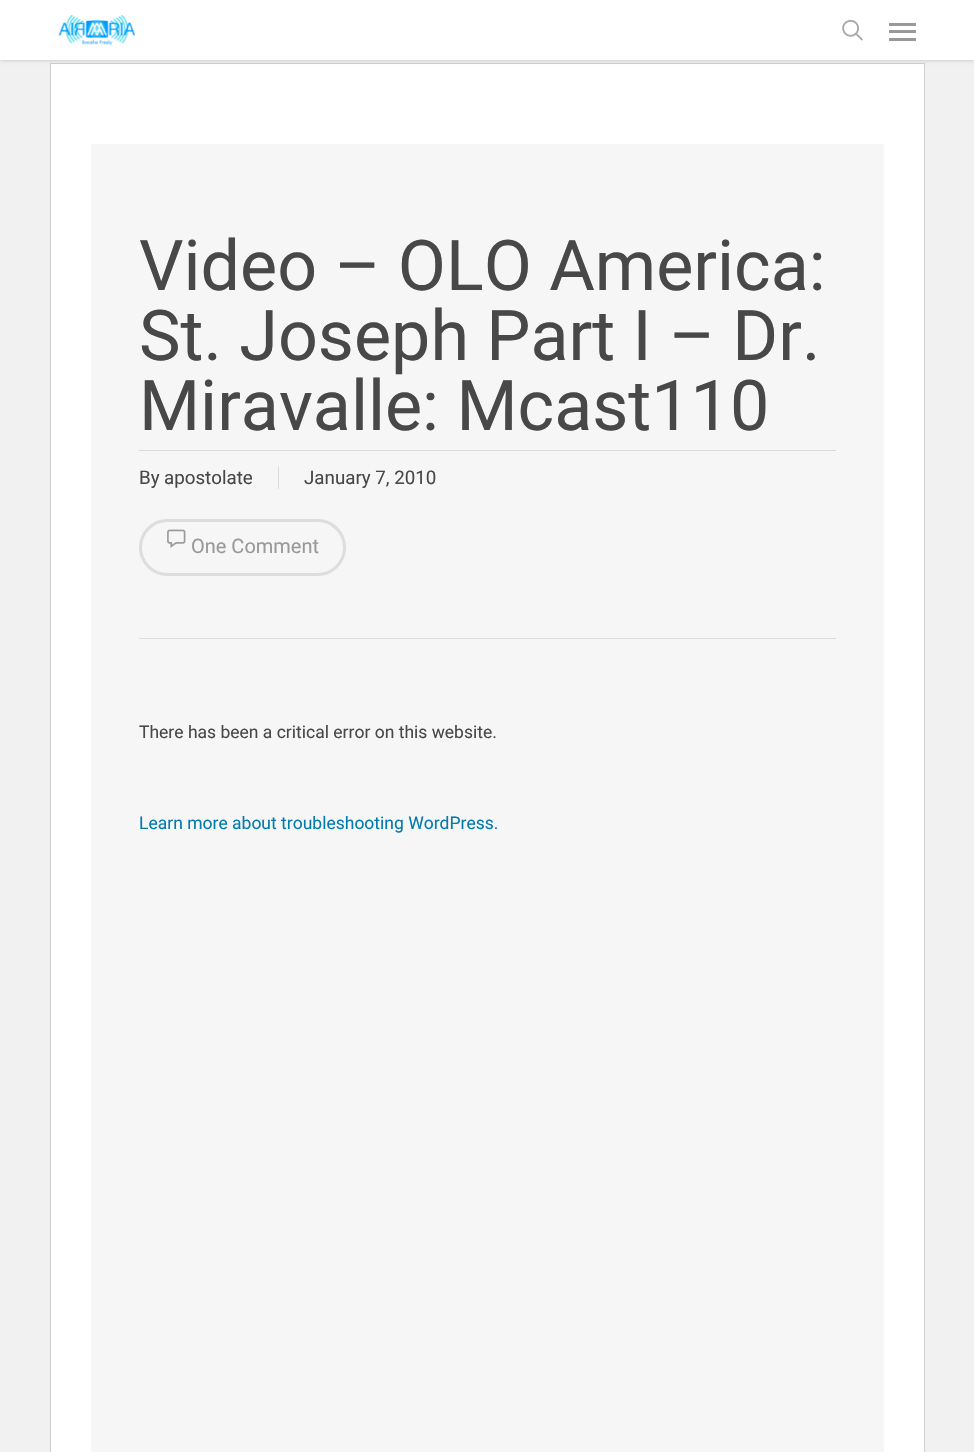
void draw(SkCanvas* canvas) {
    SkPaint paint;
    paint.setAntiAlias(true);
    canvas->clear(0xFFF1F1F1);
    paint.setColor(0xFFFFFFFF);
    canvas->drawRect(SkRect::MakeXYWH(50.5f, 63.5f, 874, 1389), paint);
    paint.setStyle(SkPaint::kStroke_Style);
    paint.setStrokeWidth(1);
    paint.setColor(0xFFCCD0D4);
    canvas->drawRect(SkRect::MakeXYWH(50.5f, 63.5f, 874, 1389), paint);
    paint.setStyle(SkPaint::kFill_Style);
    paint.setColor(0x38000000);
    paint.setMaskFilter(SkMaskFilter::MakeBlur(kNormal_SkBlurStyle, 2));
    canvas->drawRect(SkRect::MakeXYWH(0, 0, 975, 60), paint);
    paint.setMaskFilter(nullptr);
    paint.setColor(0xFFFFFFFF);
    canvas->drawRect(SkRect::MakeXYWH(0, 0, 974, 60), paint);
    canvas->drawImageRect(SkImages::DeferredFromEncodedData(SkData::MakeFromFileName("img1.png")), SkRect::MakeXYWH(58, 15, 77, 30), SkSamplingOptions());
    canvas->drawImageRect(SkImages::DeferredFromEncodedData(SkData::MakeFromFileName("img2.png")), SkRect::MakeXYWH(842, 19, 21, 22), SkSamplingOptions());
    paint.setColor(0xFF999999);
    canvas->drawRect(SkRect::MakeXYWH(889, 23, 27, 3), paint);
    canvas->drawRect(SkRect::MakeXYWH(889, 38, 27, 3), paint);
    canvas->drawRect(SkRect::MakeXYWH(889, 30, 27, 3), paint);
    paint.setColor(0xFFF6F6F6);
    canvas->drawRect(SkRect::MakeXYWH(91, 144, 793, 1308), paint);
    paint.setColor(0xFFDDDDDD);
    canvas->drawRect(SkRect::MakeXYWH(139, 638, 697, 1), paint);
    paint.setColor(0xFFDADADA);
    canvas->drawRect(SkRect::MakeXYWH(139, 450, 697, 1), paint);
    SkFont font1(fontMgr->matchFamilyStyle("Roboto", SkFontStyle::Normal()), 70);
    font1.setSubpixel(true);
    paint.setColor(0xFF484848);
    canvas->drawString("Video – OLO America:", 139, 290, font1, paint);
    canvas->drawString("St. Joseph Part I – Dr.", 139, 360, font1, paint);
    canvas->drawString("Miravalle: Mcast110", 139, 430, font1, paint);
    SkFont font2(fontMgr->matchFamilyStyle("Roboto", SkFontStyle::Normal()), 18.75f);
    font2.setSubpixel(true);
    canvas->drawString("By", 139, 484, font2, paint);
    canvas->drawString("apostolate", 164, 484, font2, paint);
    canvas->drawString("January 7, 2010", 304, 484, font2, paint);
    paint.setColor(0xFFDDDDDD);
    canvas->drawRect(SkRect::MakeXYWH(278, 466, 1, 23), paint);
    paint.setStyle(SkPaint::kStroke_Style);
    paint.setStrokeWidth(3);
    canvas->drawRoundRect(SkRect::MakeXYWH(140.5f, 520.5f, 204, 54), 27, 27, paint);
    canvas->drawImageRect(SkImages::DeferredFromEncodedData(SkData::MakeFromFileName("img3.png")), SkRect::MakeXYWH(167, 529, 19, 19), SkSamplingOptions());
    SkFont font3(fontMgr->matchFamilyStyle("Roboto", SkFontStyle::Normal()), 20);
    font3.setSubpixel(true);
    paint.setStyle(SkPaint::kFill_Style);
    paint.setColor(0xFF999999);
    canvas->drawString("One Comment", 191, 553, font3, paint);
    SkFont font4(fontMgr->matchFamilyStyle("Roboto", SkFontStyle::Normal()), 17.5f);
    font4.setSubpixel(true);
    paint.setColor(0xFF484848);
    canvas->drawString("There has been a critical error on this website.", 139, 738, font4, paint);
    paint.setColor(0xFF027BAF);
    canvas->drawString("Learn more about troubleshooting WordPress.", 139, 829, font4, paint);
}
